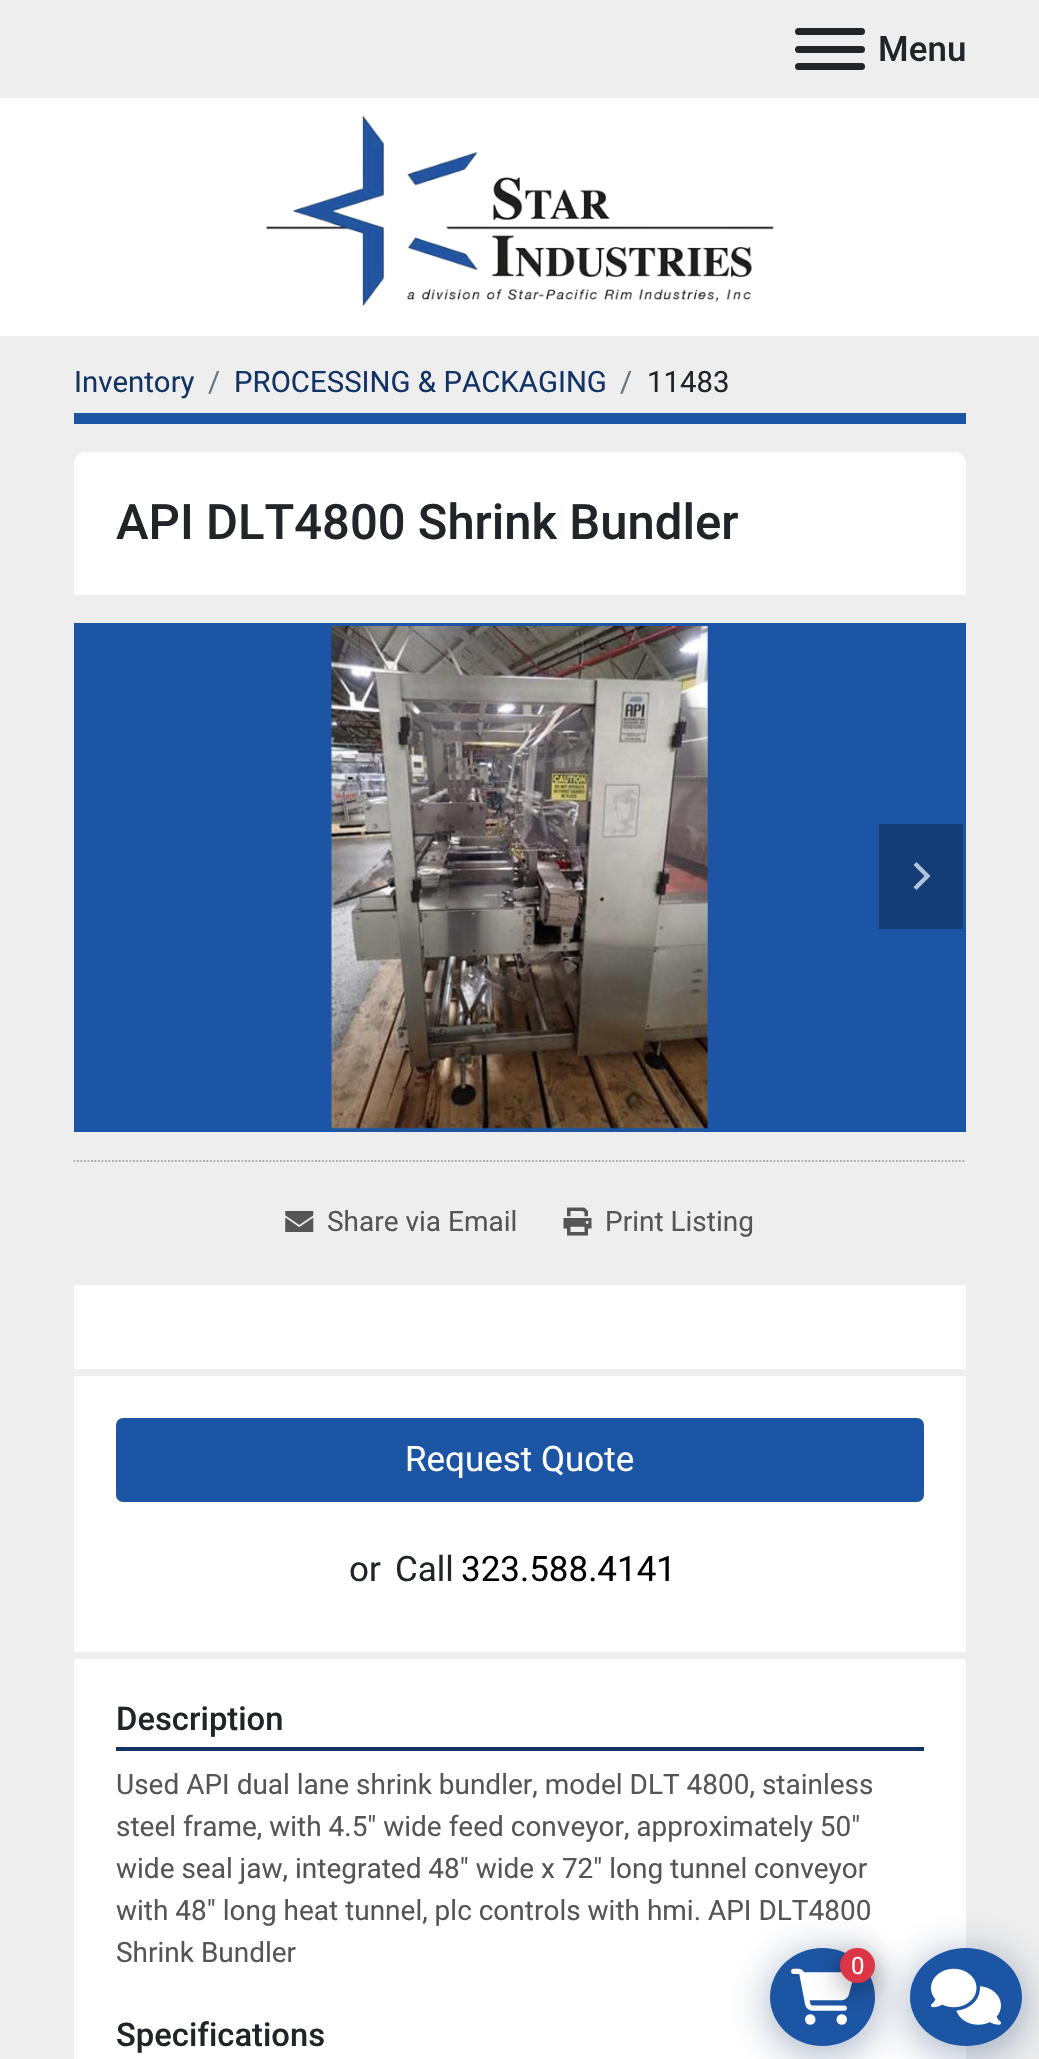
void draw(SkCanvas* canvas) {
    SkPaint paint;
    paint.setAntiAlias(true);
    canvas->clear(0xFFEEEEEE);
    paint.setColor(0xFFFFFFFF);
    canvas->drawRect(SkRect::MakeXYWH(0, 98, 1039, 238), paint);
    paint.setColor(0xFF212529);
    canvas->drawRoundRect(SkRect::MakeXYWH(795, 46, 70, 7), 3.5f, 3.5f, paint);
    canvas->drawRoundRect(SkRect::MakeXYWH(795, 28, 70, 7), 3.5f, 3.5f, paint);
    canvas->drawRoundRect(SkRect::MakeXYWH(795, 63, 70, 7), 3.5f, 3.5f, paint);
    SkFont font1(fontMgr->matchFamilyStyle("Roboto", SkFontStyle(500, SkFontStyle::kNormal_Width, SkFontStyle::kUpright_Slant)), 35);
    font1.setSubpixel(true);
    canvas->drawString("Menu", 878, 61, font1, paint);
    canvas->drawImageRect(SkImages::DeferredFromEncodedData(SkData::MakeFromFileName("img1.png")), SkRect::MakeXYWH(266, 115, 508, 191), SkSamplingOptions());
    paint.setColor(0xFF1D55A5);
    canvas->drawRect(SkRect::MakeXYWH(74, 413, 892, 11), paint);
    SkFont font2(fontMgr->matchFamilyStyle("Roboto", SkFontStyle::Normal()), 29.4f);
    font2.setSubpixel(true);
    paint.setColor(0xFF123364);
    canvas->drawString("Inventory", 74, 392, font2, paint);
    paint.setColor(0xFF6C757D);
    canvas->drawString("/", 208, 392, font2, paint);
    paint.setColor(0xFF123364);
    canvas->drawString("PROCESSING & PACKAGING", 234, 392, font2, paint);
    paint.setColor(0xFF6C757D);
    canvas->drawString("/", 620, 392, font2, paint);
    paint.setColor(0xFF212529);
    canvas->drawString("11483", 647, 392, font2, paint);
    paint.setColor(0xFFFFFFFF);
    canvas->drawPath(SkPathBuilder().moveTo(85, 452).lineTo(955, 452).cubicTo(961, 452, 966, 457, 966, 463).lineTo(966, 595).lineTo(74, 595).lineTo(74, 463).cubicTo(74, 457, 79, 452, 85, 452).close().detach(), paint);
    SkFont font3(fontMgr->matchFamilyStyle("Roboto", SkFontStyle(500, SkFontStyle::kNormal_Width, SkFontStyle::kUpright_Slant)), 49);
    font3.setSubpixel(true);
    paint.setColor(0xFF212529);
    canvas->drawString("API DLT4800 Shrink Bundler", 116, 539, font3, paint);
    paint.setColor(0xFF1C55A5);
    canvas->drawRect(SkRect::MakeXYWH(74, 623, 892, 509), paint);
    canvas->drawImageRect(SkImages::DeferredFromEncodedData(SkData::MakeFromFileName("img2.png")), SkRect::MakeXYWH(331, 626, 377, 503), SkSamplingOptions());
    paint.setColor(0xFF143C75);
    canvas->drawRect(SkRect::MakeXYWH(879, 824, 84, 105), paint);
    paint.setColor(0xFFB0C4E0);
    canvas->drawPath(SkPathBuilder().moveTo(930.5f, 876).lineTo(916.5f, 890).lineTo(913.5f, 887).lineTo(924.5f, 876).lineTo(913.5f, 865).lineTo(916.5f, 862).close().detach(), paint);
    paint.setStyle(SkPaint::kStroke_Style);
    paint.setStrokeWidth(1.8f);
    paint.setColor(0xFFAAAAAA);
    paint.setPathEffect(SkDashPathEffect::Make({{1.75f, 1.75f}}, 0));
    canvas->drawPath(SkPathBuilder().moveTo(73.5f, 1161).lineTo(966, 1161).detach(), paint);
    paint.setPathEffect(nullptr);
    canvas->drawImageRect(SkImages::DeferredFromEncodedData(SkData::MakeFromFileName("img3.png")), SkRect::MakeXYWH(285, 1211, 29, 21), SkSamplingOptions());
    SkFont font4(fontMgr->matchFamilyStyle("Roboto", SkFontStyle::Normal()), 28);
    font4.setSubpixel(true);
    paint.setStyle(SkPaint::kFill_Style);
    paint.setColor(0xFF555555);
    canvas->drawString("Share via Email", 327, 1231, font4, paint);
    canvas->drawImageRect(SkImages::DeferredFromEncodedData(SkData::MakeFromFileName("img4.png")), SkRect::MakeXYWH(563, 1207, 29, 29), SkSamplingOptions());
    canvas->drawString("Print Listing", 605, 1231, font4, paint);
    paint.setColor(0xFFFFFFFF);
    canvas->drawRect(SkRect::MakeXYWH(74, 1285, 892, 774), paint);
    paint.setColor(0xFFEEEEEE);
    canvas->drawRect(SkRect::MakeXYWH(74, 1369, 892, 7), paint);
    canvas->drawRect(SkRect::MakeXYWH(74, 1652, 892, 7), paint);
    paint.setColor(0xFF1D55A5);
    canvas->drawRoundRect(SkRect::MakeXYWH(117, 1419, 806, 82), 6, 6, paint);
    paint.setStyle(SkPaint::kStroke_Style);
    paint.setStrokeWidth(2);
    canvas->drawRoundRect(SkRect::MakeXYWH(117, 1419, 806, 82), 6, 6, paint);
    SkFont font5(fontMgr->matchFamilyStyle("Roboto", SkFontStyle::Normal()), 35);
    font5.setSubpixel(true);
    paint.setStyle(SkPaint::kFill_Style);
    paint.setColor(0xFFFFFFFF);
    canvas->drawString("Request Quote", 405, 1471, font5, paint);
    paint.setColor(0xFF212529);
    canvas->drawString("or", 349, 1581, font5, paint);
    canvas->drawString("Call", 395, 1581, font5, paint);
    paint.setColor(0xFF000000);
    canvas->drawString("323.588.4141", 461, 1581, font5, paint);
    paint.setColor(0xFF123364);
    canvas->drawRect(SkRect::MakeXYWH(116, 1747, 808, 4), paint);
    SkFont font6(fontMgr->matchFamilyStyle("Roboto", SkFontStyle(500, SkFontStyle::kNormal_Width, SkFontStyle::kUpright_Slant)), 32.75f);
    font6.setSubpixel(true);
    paint.setColor(0xFF212529);
    canvas->drawString("Description", 116, 1730, font6, paint);
    paint.setColor(0xFF555555);
    canvas->drawString("Used API dual lane shrink bundler, model DLT 4800, stainless", 116, 1794, font4, paint);
    canvas->drawString("steel frame, with 4.5\" wide feed conveyor, approximately 50\"", 116, 1836, font4, paint);
    canvas->drawString("wide seal jaw, integrated 48\" wide x 72\" long tunnel conveyor", 116, 1878, font4, paint);
    canvas->drawString("with 48\" long heat tunnel, plc controls with hmi. API DLT4800", 116, 1920, font4, paint);
    canvas->drawString("Shrink Bundler", 116, 1962, font4, paint);
    paint.setColor(0xFF212529);
    canvas->drawString("Specifications", 116, 2046, font6, paint);
    paint.setColor(0x66123364);
    paint.setMaskFilter(SkMaskFilter::MakeBlur(kNormal_SkBlurStyle, 21));
    canvas->drawRoundRect(SkRect::MakeXYWH(770, 1955, 105, 98), 49, 49, paint);
    paint.setMaskFilter(nullptr);
    paint.setColor(0xFF1D55A5);
    canvas->drawOval(SkRect::MakeXYWH(770, 1948, 105, 98), paint);
    canvas->drawImageRect(SkImages::DeferredFromEncodedData(SkData::MakeFromFileName("img6.png")), SkRect::MakeXYWH(791, 1968, 62, 57), SkSamplingOptions());
    paint.setColor(0x66123364);
    paint.setMaskFilter(SkMaskFilter::MakeBlur(kNormal_SkBlurStyle, 21));
    canvas->drawRoundRect(SkRect::MakeXYWH(910, 1955, 112, 98), 49, 49, paint);
    paint.setMaskFilter(nullptr);
    paint.setColor(0xFF1D55A5);
    canvas->drawOval(SkRect::MakeXYWH(910, 1948, 112, 98), paint);
    canvas->drawImageRect(SkImages::DeferredFromEncodedData(SkData::MakeFromFileName("img5.png")), SkRect::MakeXYWH(931, 1968, 70, 57), SkSamplingOptions());
    paint.setColor(0x66000000);
    paint.setMaskFilter(SkMaskFilter::MakeBlur(kNormal_SkBlurStyle, 14));
    canvas->drawRoundRect(SkRect::MakeXYWH(840, 1955, 35, 35), 17.5f, 17.5f, paint);
    paint.setMaskFilter(nullptr);
    paint.setColor(0xFFDC3545);
    canvas->drawCircle(857.5f, 1965.5f, 17.5f, paint);
    SkFont font7(fontMgr->matchFamilyStyle("Roboto", SkFontStyle::Normal()), 24);
    font7.setSubpixel(true);
    paint.setColor(0xFFFFFFFF);
    canvas->drawString("0", 851, 1974, font7, paint);
}
